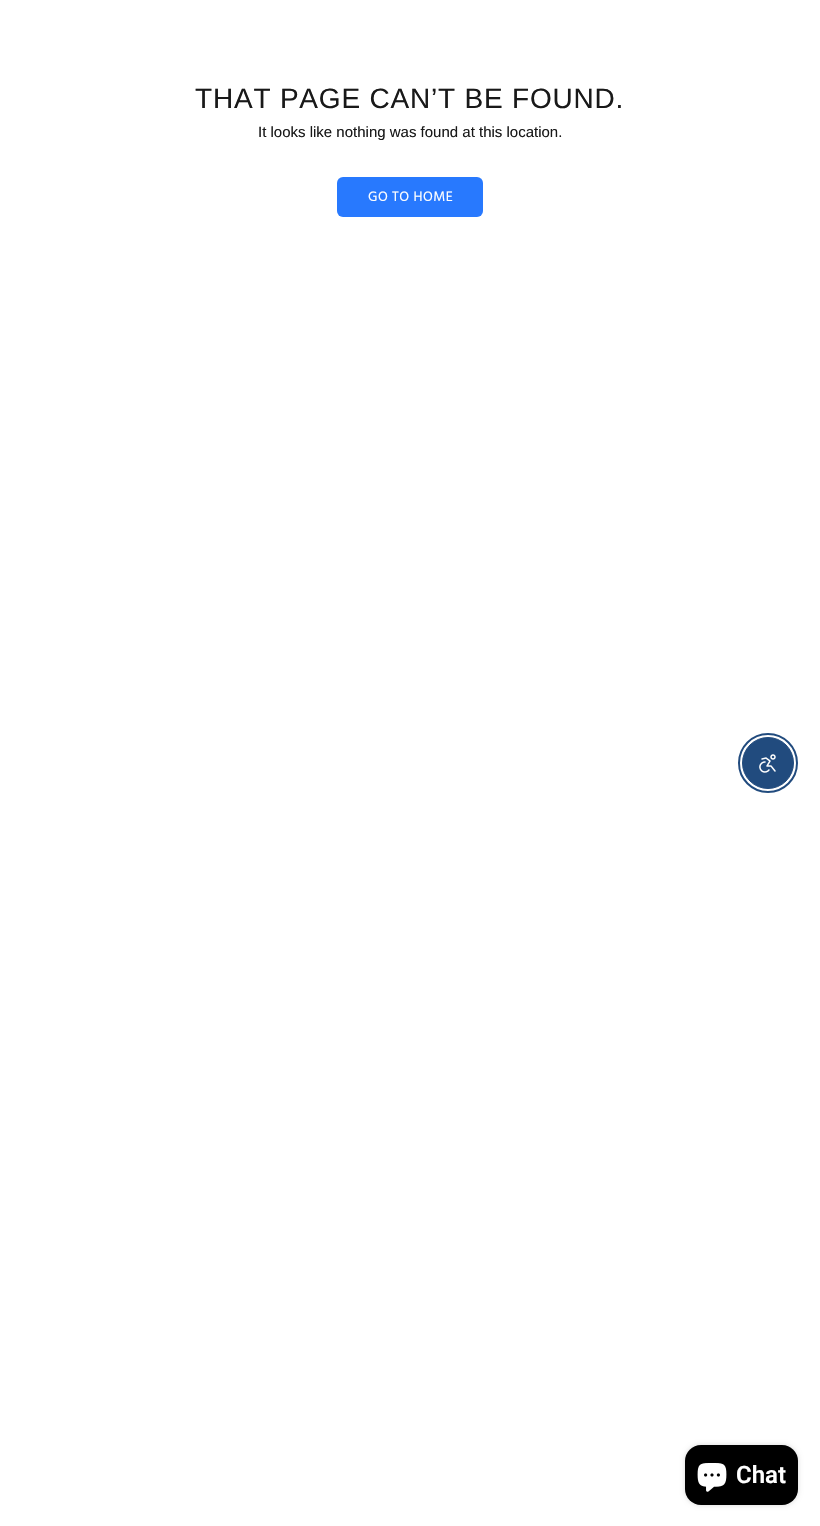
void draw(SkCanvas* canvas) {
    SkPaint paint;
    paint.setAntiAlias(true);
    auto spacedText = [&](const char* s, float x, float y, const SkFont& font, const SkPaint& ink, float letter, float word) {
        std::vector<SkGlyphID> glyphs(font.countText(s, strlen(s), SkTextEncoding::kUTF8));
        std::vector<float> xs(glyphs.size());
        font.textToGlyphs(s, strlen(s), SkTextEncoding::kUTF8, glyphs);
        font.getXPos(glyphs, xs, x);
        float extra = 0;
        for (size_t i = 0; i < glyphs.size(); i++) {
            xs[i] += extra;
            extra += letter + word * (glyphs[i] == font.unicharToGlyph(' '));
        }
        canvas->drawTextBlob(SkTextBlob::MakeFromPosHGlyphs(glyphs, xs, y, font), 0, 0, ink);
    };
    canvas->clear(0xFFFFFFFF);
    SkFont font1(fontMgr->matchFamilyStyle("Liberation Sans", SkFontStyle::Normal()), 28);
    font1.setSubpixel(true);
    paint.setColor(0xFF191919);
    spacedText("THAT PAGE CAN’T BE FOUND.", 195, 108, font1, paint, 0.8f, 0);
    SkFont font2(fontMgr->matchFamilyStyle("Liberation Sans", SkFontStyle::Normal()), 15);
    font2.setSubpixel(true);
    canvas->drawString("It looks like nothing was found at this location.", 258, 137, font2, paint);
    paint.setColor(0xFF2879FE);
    canvas->drawRoundRect(SkRect::MakeXYWH(337, 177, 146, 40), 6, 6, paint);
    SkFont font3(fontMgr->matchFamilyStyle("Hind", SkFontStyle::Normal()), 14);
    font3.setSubpixel(true);
    paint.setColor(0xFFFFFFFF);
    spacedText("GO TO HOME", 368, 201, font3, paint, 0.5f, 0);
    paint.setStyle(SkPaint::kStroke_Style);
    paint.setStrokeWidth(2);
    paint.setColor(0xFF214B7E);
    canvas->drawCircle(768, 763, 29, paint);
    paint.setStyle(SkPaint::kFill_Style);
    canvas->drawCircle(768, 763, 25.5f, paint);
    paint.setStyle(SkPaint::kStroke_Style);
    paint.setStrokeWidth(1);
    canvas->drawCircle(768, 763, 25.5f, paint);
    canvas->drawImageRect(SkImages::DeferredFromEncodedData(SkData::MakeFromFileName("img1.png")), SkRect::MakeXYWH(759, 754, 17, 19), SkSamplingOptions());
    paint.setStyle(SkPaint::kFill_Style);
    paint.setColor(0x26000000);
    paint.setMaskFilter(SkMaskFilter::MakeBlur(kNormal_SkBlurStyle, 2.5f));
    canvas->drawRoundRect(SkRect::MakeXYWH(685, 1445, 113, 60), 16, 16, paint);
    paint.setMaskFilter(nullptr);
    paint.setColor(0xFF000000);
    canvas->drawRoundRect(SkRect::MakeXYWH(685, 1445, 113, 60), 16, 16, paint);
    canvas->drawImageRect(SkImages::DeferredFromEncodedData(SkData::MakeFromFileName("img2.png")), SkRect::MakeXYWH(697, 1463, 30, 29), SkSamplingOptions());
    SkFont font4(fontMgr->matchFamilyStyle("Roboto", SkFontStyle(600, SkFontStyle::kNormal_Width, SkFontStyle::kUpright_Slant)), 24);
    font4.setSubpixel(true);
    paint.setColor(0xFFFFFFFF);
    canvas->drawString("Chat", 736, 1483, font4, paint);
}
